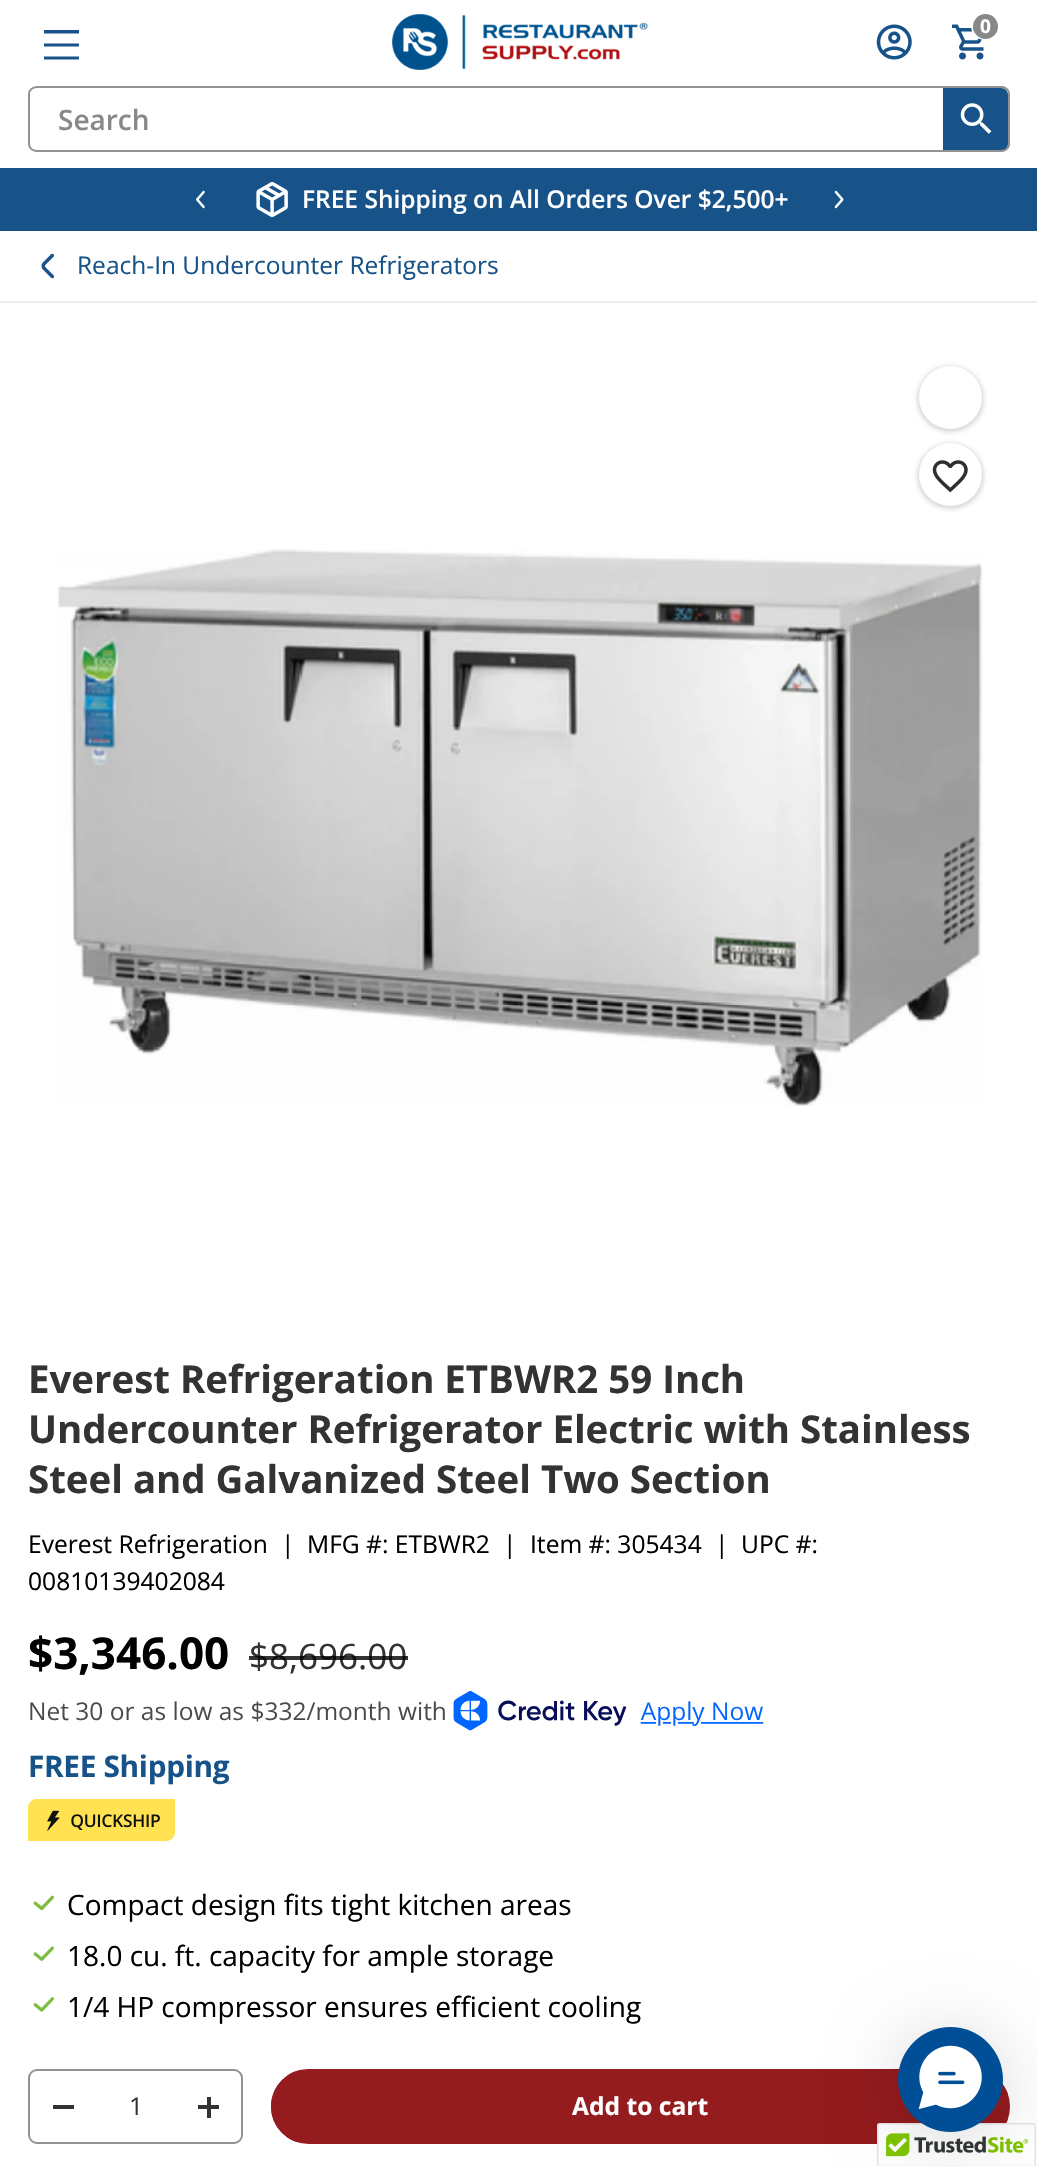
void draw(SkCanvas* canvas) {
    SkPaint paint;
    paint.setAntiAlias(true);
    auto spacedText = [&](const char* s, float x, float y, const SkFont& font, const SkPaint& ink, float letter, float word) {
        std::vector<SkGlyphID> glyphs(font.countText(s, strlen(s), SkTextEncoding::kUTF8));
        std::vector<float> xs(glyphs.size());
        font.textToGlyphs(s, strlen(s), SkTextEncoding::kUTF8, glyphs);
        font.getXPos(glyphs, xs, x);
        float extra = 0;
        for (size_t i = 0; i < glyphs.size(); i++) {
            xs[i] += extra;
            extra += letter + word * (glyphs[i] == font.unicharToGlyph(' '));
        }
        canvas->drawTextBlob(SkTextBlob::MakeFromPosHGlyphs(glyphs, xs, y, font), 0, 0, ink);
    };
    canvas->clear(0xFFFFFFFF);
    canvas->drawImageRect(SkImages::DeferredFromEncodedData(SkData::MakeFromFileName("img1.png")), SkRect::MakeXYWH(392, 14, 256, 56), SkSamplingOptions());
    canvas->drawImageRect(SkImages::DeferredFromEncodedData(SkData::MakeFromFileName("img2.png")), SkRect::MakeXYWH(876, 24, 36, 36), SkSamplingOptions());
    canvas->drawImageRect(SkImages::DeferredFromEncodedData(SkData::MakeFromFileName("img3.png")), SkRect::MakeXYWH(952, 24, 32, 36), SkSamplingOptions());
    paint.setStyle(SkPaint::kStroke_Style);
    paint.setStrokeWidth(2);
    paint.setColor(0xFFFFFFFF);
    canvas->drawCircle(985, 26, 13, paint);
    paint.setStyle(SkPaint::kFill_Style);
    paint.setColor(0xFF888888);
    canvas->drawCircle(985.5f, 26.5f, 12.5f, paint);
    SkFont font1(fontMgr->matchFamilyStyle("Open Sans", SkFontStyle::Bold()), 19);
    font1.setSubpixel(true);
    paint.setColor(0xFFFFFFFF);
    canvas->drawString("0", 980, 33, font1, paint);
    paint.setColor(0xFF175389);
    canvas->drawPath(SkPathBuilder().moveTo(44, 30).lineTo(79, 30).lineTo(79, 33.5f).lineTo(44, 33.5f).close().moveTo(44, 43.5f).lineTo(79, 43.5f).lineTo(79, 46.5f).lineTo(44, 46.5f).close().moveTo(44, 56.5f).lineTo(79, 56.5f).lineTo(79, 59.5f).lineTo(44, 59.5f).close().detach(), paint);
    paint.setColor(0xFF929292);
    canvas->drawPath(SkPathBuilder(SkPathFillType::kEvenOdd).moveTo(37, 86).lineTo(1001, 86).cubicTo(1006, 86, 1010, 90, 1010, 94).lineTo(1010, 144).cubicTo(1010, 148, 1006, 152, 1001, 152).lineTo(37, 152).cubicTo(32, 152, 28, 148, 28, 144).lineTo(28, 94).cubicTo(28, 90, 32, 86, 37, 86).close().moveTo(37, 88).lineTo(1001, 88).cubicTo(1006, 88, 1010, 91, 1010, 94).lineTo(1010, 144).cubicTo(1010, 147, 1006, 150, 1001, 150).lineTo(37, 150).cubicTo(33, 150, 30, 147, 30, 144).lineTo(30, 94).cubicTo(30, 91, 33, 88, 37, 88).close().detach(), paint);
    SkFont font2(fontMgr->matchFamilyStyle("Open Sans", SkFontStyle(600, SkFontStyle::kNormal_Width, SkFontStyle::kUpright_Slant)), 28);
    font2.setSubpixel(true);
    paint.setColor(0xFF888888);
    canvas->drawString("Search", 58, 130, font2, paint);
    paint.setColor(0xFF175389);
    canvas->drawPath(SkPathBuilder().moveTo(943, 88).lineTo(1001, 88).cubicTo(1005, 88, 1008, 91, 1008, 95).lineTo(1008, 144).cubicTo(1008, 148, 1005, 151, 1001, 151).lineTo(943, 151).close().detach(), paint);
    paint.setColor(0xFF929292);
    canvas->drawPath(SkPathBuilder(SkPathFillType::kEvenOdd).moveTo(943, 86).lineTo(1001, 86).cubicTo(1006, 86, 1010, 90, 1010, 94).lineTo(1010, 144).cubicTo(1010, 148, 1006, 152, 1001, 152).lineTo(943, 152).close().moveTo(943, 88).lineTo(1001, 88).cubicTo(1005, 88, 1008, 91, 1008, 94).lineTo(1008, 144).cubicTo(1008, 147, 1005, 150, 1001, 150).lineTo(943, 150).close().detach(), paint);
    canvas->drawImageRect(SkImages::DeferredFromEncodedData(SkData::MakeFromFileName("img4.png")), SkRect::MakeXYWH(960, 103, 32, 31), SkSamplingOptions());
    paint.setColor(0xFF175389);
    canvas->drawRect(SkRect::MakeXYWH(0, 168, 1037, 63), paint);
    canvas->drawImageRect(SkImages::DeferredFromEncodedData(SkData::MakeFromFileName("img5.png")), SkRect::MakeXYWH(256, 182, 32, 35), SkSamplingOptions());
    SkFont font3(fontMgr->matchFamilyStyle("Open Sans", SkFontStyle(600, SkFontStyle::kNormal_Width, SkFontStyle::kUpright_Slant)), 24.5f);
    font3.setSubpixel(true);
    paint.setColor(0xFFFFFFFF);
    canvas->drawString("FREE Shipping on All Orders Over $2,500+", 302, 208, font3, paint);
    canvas->drawImageRect(SkImages::DeferredFromEncodedData(SkData::MakeFromFileName("img6.png")), SkRect::MakeXYWH(196, 190, 9, 19), SkSamplingOptions());
    canvas->drawImageRect(SkImages::DeferredFromEncodedData(SkData::MakeFromFileName("img7.png")), SkRect::MakeXYWH(834, 190, 10, 19), SkSamplingOptions());
    paint.setColor(0xFFEBECED);
    canvas->drawRect(SkRect::MakeXYWH(0, 301, 1037, 2), paint);
    canvas->drawImageRect(SkImages::DeferredFromEncodedData(SkData::MakeFromFileName("img8.png")), SkRect::MakeXYWH(41, 253, 14, 26), SkSamplingOptions());
    SkFont font4(fontMgr->matchFamilyStyle("Open Sans", SkFontStyle::Normal()), 24.5f);
    font4.setSubpixel(true);
    paint.setColor(0xFF175389);
    canvas->drawString("Reach-In Undercounter Refrigerators", 77, 274, font4, paint);
    paint.setColor(0x26000000);
    paint.setMaskFilter(SkMaskFilter::MakeBlur(kNormal_SkBlurStyle, 2));
    canvas->drawRoundRect(SkRect::MakeXYWH(917, 366, 67, 66), 33, 33, paint);
    paint.setMaskFilter(nullptr);
    paint.setColor(0xFFFFFFFF);
    canvas->drawCircle(950.5f, 397.5f, 31.5f, paint);
    paint.setColor(0x26000000);
    paint.setMaskFilter(SkMaskFilter::MakeBlur(kNormal_SkBlurStyle, 2));
    canvas->drawRoundRect(SkRect::MakeXYWH(917, 443, 67, 66), 33, 33, paint);
    paint.setMaskFilter(nullptr);
    paint.setColor(0xFFFFFFFF);
    canvas->drawCircle(950.5f, 474.5f, 31.5f, paint);
    canvas->drawImageRect(SkImages::DeferredFromEncodedData(SkData::MakeFromFileName("img9.png")), SkRect::MakeXYWH(932, 460, 36, 33), SkSamplingOptions());
    canvas->drawImageRect(SkImages::DeferredFromEncodedData(SkData::MakeFromFileName("img10.png")), SkRect::MakeXYWH(57, 549, 926, 557), SkSamplingOptions());
    canvas->drawImageRect(SkImages::DeferredFromEncodedData(SkData::MakeFromFileName("img11.png")), SkRect::MakeXYWH(74, 552, 906, 554), SkSamplingOptions());
    SkFont font5(fontMgr->matchFamilyStyle("Open Sans", SkFontStyle::Bold()), 38.4f);
    font5.setSubpixel(true);
    paint.setColor(0xFF333333);
    canvas->drawString("Everest Refrigeration ETBWR2 59 Inch", 28, 1393, font5, paint);
    canvas->drawString("Undercounter Refrigerator Electric with Stainless", 28, 1443, font5, paint);
    canvas->drawString("Steel and Galvanized Steel Two Section", 28, 1493, font5, paint);
    SkFont font6(fontMgr->matchFamilyStyle("Open Sans", SkFontStyle::Normal()), 24.6f);
    font6.setSubpixel(true);
    paint.setColor(0xFF000000);
    canvas->drawString("Everest Refrigeration", 28, 1553, font6, paint);
    canvas->drawString("|", 281, 1553, font6, paint);
    canvas->drawString("MFG #: ETBWR2", 307, 1553, font6, paint);
    canvas->drawString("|", 503, 1553, font6, paint);
    canvas->drawString("Item #: 305434", 530, 1553, font6, paint);
    canvas->drawString("|", 715, 1553, font6, paint);
    canvas->drawString("UPC #:", 741, 1553, font6, paint);
    canvas->drawString("00810139402084", 28, 1590, font6, paint);
    SkFont font7(fontMgr->matchFamilyStyle("Open Sans", SkFontStyle::Bold()), 44);
    font7.setSubpixel(true);
    canvas->drawString("$3,346.00", 28, 1669, font7, paint);
    SkFont font8(fontMgr->matchFamilyStyle("Open Sans", SkFontStyle::Normal()), 35);
    font8.setSubpixel(true);
    paint.setColor(0xFF333333);
    canvas->drawString("$8,696.00", 249, 1669, font8, paint);
    paint.setColor(0xCC000000);
    canvas->drawRect(SkRect::MakeXYWH(249, 1656, 159, 4), paint);
    canvas->drawImageRect(SkImages::DeferredFromEncodedData(SkData::MakeFromFileName("img12.png")), SkRect::MakeXYWH(30, 1691, 734, 40), SkSamplingOptions());
    SkFont font9(fontMgr->matchFamilyStyle("Open Sans", SkFontStyle::Bold()), 29.75f);
    font9.setSubpixel(true);
    paint.setColor(0xFF175389);
    spacedText("FREE Shipping", 28, 1777, font9, paint, -0.3f, 0);
    canvas->drawImageRect(SkImages::DeferredFromEncodedData(SkData::MakeFromFileName("img13.png")), SkRect::MakeXYWH(28, 1799, 147, 42), SkSamplingOptions());
    canvas->drawImageRect(SkImages::DeferredFromEncodedData(SkData::MakeFromFileName("img14.png")), SkRect::MakeXYWH(33, 1895, 21, 16), SkSamplingOptions());
    SkFont font10(fontMgr->matchFamilyStyle("Open Sans", SkFontStyle::Normal()), 28);
    font10.setSubpixel(true);
    paint.setColor(0xFF000000);
    canvas->drawString("Compact design fits tight kitchen areas", 67, 1915, font10, paint);
    canvas->drawImageRect(SkImages::DeferredFromEncodedData(SkData::MakeFromFileName("img15.png")), SkRect::MakeXYWH(33, 1946, 21, 15), SkSamplingOptions());
    canvas->drawString("18.0 cu. ft. capacity for ample storage", 67, 1966, font10, paint);
    canvas->drawImageRect(SkImages::DeferredFromEncodedData(SkData::MakeFromFileName("img16.png")), SkRect::MakeXYWH(33, 1997, 21, 15), SkSamplingOptions());
    canvas->drawString("1/4 HP compressor ensures efficient cooling", 67, 2017, font10, paint);
    paint.setStyle(SkPaint::kStroke_Style);
    paint.setColor(0xFF929292);
    canvas->drawRoundRect(SkRect::MakeXYWH(29, 2070, 213, 73), 8, 8, paint);
    paint.setStyle(SkPaint::kFill_Style);
    paint.setColor(0xFF333333);
    canvas->drawRect(SkRect::MakeXYWH(53, 2105, 21, 4), paint);
    canvas->drawString("1", 129, 2115, font6, paint);
    canvas->drawRect(SkRect::MakeXYWH(198, 2105, 21, 4), paint);
    canvas->drawRect(SkRect::MakeXYWH(207, 2097, 4, 21), paint);
    canvas->save();
    canvas->clipPath(SkPathBuilder().moveTo(308.5f, 2069).lineTo(972.5f, 2069).cubicTo(993, 2069, 1010, 2086, 1010, 2106.5f).cubicTo(1010, 2127, 993, 2144, 972.5f, 2144).lineTo(308.5f, 2144).cubicTo(288, 2144, 271, 2127, 271, 2106.5f).cubicTo(271, 2086, 288, 2069, 308.5f, 2069).close().detach(), true);
    {
        const SkColor colors[] = {0x12FFFFFF, 0xFF941B1E, 0xFF941B1E};
        const float stops[] = {0.6f, 0.6f, 1};
        const SkPoint ends[] = {{-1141, 1845}, {952, 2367}};
        paint.setShader(SkGradientShader::MakeLinear(ends, colors, stops, 3, SkTileMode::kClamp));
        paint.setAlpha(255);
    }
    canvas->drawRect(SkRect::MakeXYWH(271, 2070, 737, 72), paint);
    canvas->restore();
    paint.setStyle(SkPaint::kStroke_Style);
    paint.setShader(nullptr);
    paint.setColor(0xFF941B1E);
    canvas->drawRoundRect(SkRect::MakeXYWH(272, 2070, 737, 73), 36.5f, 36.5f, paint);
    SkFont font11(fontMgr->matchFamilyStyle("Open Sans", SkFontStyle::Bold()), 24.6f);
    font11.setSubpixel(true);
    paint.setStyle(SkPaint::kFill_Style);
    paint.setColor(0xFFFFFFFF);
    canvas->drawString("Add to cart", 572, 2115, font11, paint);
    canvas->drawImageRect(SkImages::DeferredFromEncodedData(SkData::MakeFromFileName("img18.png")), SkRect::MakeXYWH(877, 2123, 159, 43), SkSamplingOptions());
    paint.setColor(0x29000000);
    paint.setMaskFilter(SkMaskFilter::MakeBlur(kNormal_SkBlurStyle, 35));
    canvas->drawRoundRect(SkRect::MakeXYWH(898, 2035, 105, 105), 52.5f, 52.5f, paint);
    paint.setMaskFilter(nullptr);
    paint.setColor(0xFF004E96);
    canvas->drawCircle(950.5f, 2079.5f, 52.5f, paint);
    canvas->drawImageRect(SkImages::DeferredFromEncodedData(SkData::MakeFromFileName("img17.png")), SkRect::MakeXYWH(918, 2045, 64, 64), SkSamplingOptions());
}
